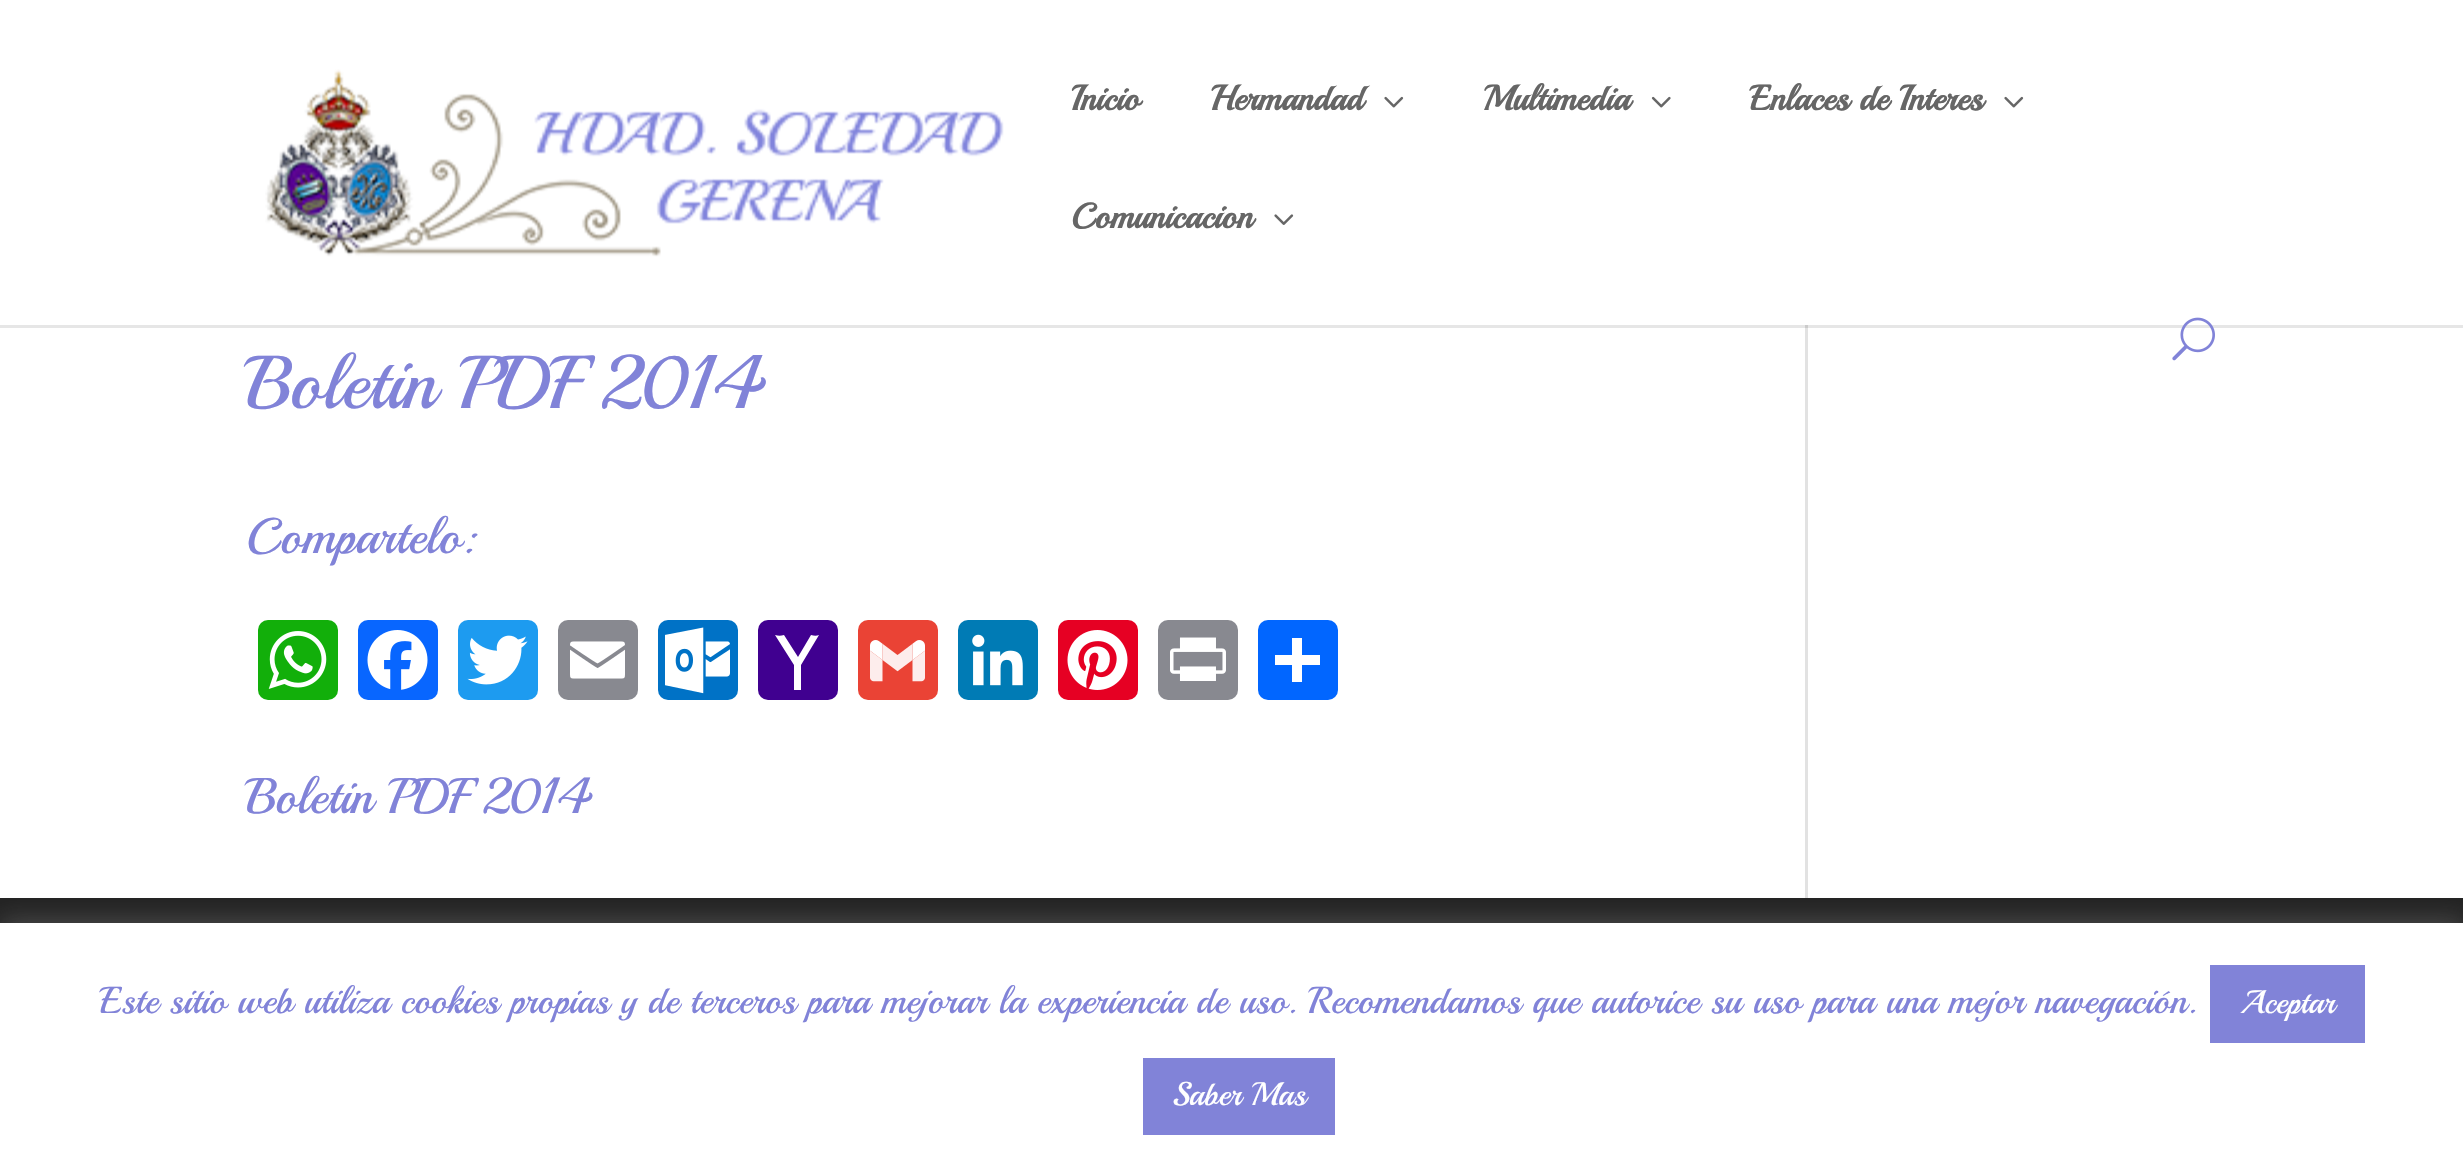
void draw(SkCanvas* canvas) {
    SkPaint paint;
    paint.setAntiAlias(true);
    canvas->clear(0xFFFFFFFF);
    canvas->drawImageRect(SkImages::DeferredFromEncodedData(SkData::MakeFromFileName("img1.png")), SkRect::MakeXYWH(265, 69, 739, 188), SkSamplingOptions());
    SkFont font1(fontMgr->matchFamilyStyle("Playball", SkFontStyle::Bold()), 35);
    font1.setSubpixel(true);
    paint.setColor(0xFF666666);
    canvas->drawString("Inicio", 1071, 110, font1, paint);
    canvas->drawString("Hermandad", 1210, 110, font1, paint);
    canvas->drawImageRect(SkImages::DeferredFromEncodedData(SkData::MakeFromFileName("img2.png")), SkRect::MakeXYWH(1384, 96, 20, 12), SkSamplingOptions());
    canvas->drawString("Multimedia", 1483, 110, font1, paint);
    canvas->drawImageRect(SkImages::DeferredFromEncodedData(SkData::MakeFromFileName("img3.png")), SkRect::MakeXYWH(1651, 96, 20, 12), SkSamplingOptions());
    canvas->drawString("Enlaces de Interes", 1750, 110, font1, paint);
    canvas->drawImageRect(SkImages::DeferredFromEncodedData(SkData::MakeFromFileName("img2.png")), SkRect::MakeXYWH(2004, 96, 20, 12), SkSamplingOptions());
    canvas->drawString("Comunicacion", 1071, 228, font1, paint);
    canvas->drawImageRect(SkImages::DeferredFromEncodedData(SkData::MakeFromFileName("img4.png")), SkRect::MakeXYWH(1274, 214, 20, 11), SkSamplingOptions());
    paint.setColor(0xFFE6E6E6);
    canvas->drawRect(SkRect::MakeXYWH(0, 325, 2463, 3), paint);
    canvas->drawImageRect(SkImages::DeferredFromEncodedData(SkData::MakeFromFileName("img5.png")), SkRect::MakeXYWH(2172, 317, 43, 44), SkSamplingOptions());
    SkFont font2(fontMgr->matchFamilyStyle("Playball", SkFontStyle::Normal()), 75);
    font2.setSubpixel(true);
    paint.setColor(0xFF8183D8);
    canvas->drawString("Boletin PDF 2014", 246, 408, font2, paint);
    SkFont font3(fontMgr->matchFamilyStyle("Playball", SkFontStyle::Normal()), 50);
    font3.setSubpixel(true);
    canvas->drawString("Compartelo:", 246, 553, font3, paint);
    paint.setColor(0xFF12AF0A);
    canvas->drawRoundRect(SkRect::MakeXYWH(258, 620, 80, 80), 10, 10, paint);
    canvas->drawImageRect(SkImages::DeferredFromEncodedData(SkData::MakeFromFileName("img6.png")), SkRect::MakeXYWH(268, 631, 59, 58), SkSamplingOptions());
    paint.setColor(0xFF0866FF);
    canvas->drawRoundRect(SkRect::MakeXYWH(358, 620, 80, 80), 10, 10, paint);
    canvas->drawImageRect(SkImages::DeferredFromEncodedData(SkData::MakeFromFileName("img7.png")), SkRect::MakeXYWH(367, 630, 61, 60), SkSamplingOptions());
    paint.setColor(0xFF1D9BF0);
    canvas->drawRoundRect(SkRect::MakeXYWH(458, 620, 80, 80), 10, 10, paint);
    canvas->drawImageRect(SkImages::DeferredFromEncodedData(SkData::MakeFromFileName("img8.png")), SkRect::MakeXYWH(467, 635, 61, 50), SkSamplingOptions());
    paint.setColor(0xFF888990);
    canvas->drawRoundRect(SkRect::MakeXYWH(558, 620, 80, 80), 10, 10, paint);
    canvas->drawImageRect(SkImages::DeferredFromEncodedData(SkData::MakeFromFileName("img9.png")), SkRect::MakeXYWH(570, 641, 55, 38), SkSamplingOptions());
    paint.setColor(0xFF0072C6);
    canvas->drawRoundRect(SkRect::MakeXYWH(658, 620, 80, 80), 10, 10, paint);
    canvas->drawImageRect(SkImages::DeferredFromEncodedData(SkData::MakeFromFileName("img10.png")), SkRect::MakeXYWH(665, 627, 65, 67), SkSamplingOptions());
    paint.setColor(0xFF400090);
    canvas->drawRoundRect(SkRect::MakeXYWH(758, 620, 80, 80), 10, 10, paint);
    paint.setColor(0xFFFFFFFF);
    canvas->drawPath(SkPathBuilder().moveTo(811, 635).cubicTo(814, 636, 817, 636, 819, 635).lineTo(801, 665).lineTo(801, 690).cubicTo(799, 690, 796, 690, 794, 690).lineTo(794, 665).lineTo(775, 635).cubicTo(778, 636, 781, 636, 784, 635).lineTo(798, 657).close().detach(), paint);
    paint.setColor(0xFFEA4335);
    canvas->drawRoundRect(SkRect::MakeXYWH(858, 620, 80, 80), 10, 10, paint);
    canvas->drawImageRect(SkImages::DeferredFromEncodedData(SkData::MakeFromFileName("img11.png")), SkRect::MakeXYWH(870, 640, 55, 42), SkSamplingOptions());
    paint.setColor(0xFF007BB5);
    canvas->drawRoundRect(SkRect::MakeXYWH(958, 620, 80, 80), 10, 10, paint);
    canvas->drawImageRect(SkImages::DeferredFromEncodedData(SkData::MakeFromFileName("img12.png")), SkRect::MakeXYWH(972, 634, 51, 52), SkSamplingOptions());
    paint.setColor(0xFFE60023);
    canvas->drawRoundRect(SkRect::MakeXYWH(1058, 620, 80, 80), 10, 10, paint);
    canvas->drawImageRect(SkImages::DeferredFromEncodedData(SkData::MakeFromFileName("img13.png")), SkRect::MakeXYWH(1067, 630, 61, 60), SkSamplingOptions());
    paint.setColor(0xFF888990);
    canvas->drawRoundRect(SkRect::MakeXYWH(1158, 620, 80, 80), 10, 10, paint);
    canvas->drawImageRect(SkImages::DeferredFromEncodedData(SkData::MakeFromFileName("img14.png")), SkRect::MakeXYWH(1170, 637, 56, 44), SkSamplingOptions());
    paint.setColor(0xFF0166FF);
    canvas->drawRoundRect(SkRect::MakeXYWH(1258, 620, 80, 80), 10, 10, paint);
    paint.setColor(0xFFFFFFFF);
    canvas->drawRect(SkRect::MakeXYWH(1292, 638, 10, 44), paint);
    canvas->drawRect(SkRect::MakeXYWH(1275, 655, 45, 10), paint);
    paint.setColor(0xFF8183D8);
    canvas->drawString("Boletin PDF 2014", 246, 813, font3, paint);
    paint.setColor(0xFFE2E2E2);
    canvas->drawRect(SkRect::MakeXYWH(1805, 328, 3, 570), paint);
    paint.setColor(0xFFCBCBCB);
    canvas->drawRect(SkRect::MakeXYWH(1805, 325, 3, 3), paint);
    paint.setColor(0xFF222222);
    canvas->drawRect(SkRect::MakeXYWH(0, 898, 2463, 25), paint);
    paint.setColor(0x4DACABAB);
    paint.setMaskFilter(SkMaskFilter::MakeBlur(kNormal_SkBlurStyle, 12.5f));
    canvas->drawRect(SkRect::MakeXYWH(0, 920, 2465, 245), paint);
    paint.setMaskFilter(nullptr);
    paint.setColor(0xFFFFFFFF);
    canvas->drawRect(SkRect::MakeXYWH(0, 923, 2463, 244), paint);
    SkFont font4(fontMgr->matchFamilyStyle("Playball", SkFontStyle::Normal()), 37.5f);
    font4.setSubpixel(true);
    paint.setColor(0xFF8183D8);
    canvas->drawString("Este sitio web utiliza cookies propias y de terceros para mejorar la experiencia de uso. Recomendamos que autorice su uso para una mejor navegación.", 100, 1013, font4, paint);
    canvas->drawRect(SkRect::MakeXYWH(2210, 965, 155, 78), paint);
    SkFont font5(fontMgr->matchFamilyStyle("Playball", SkFontStyle::Normal()), 32.5f);
    font5.setSubpixel(true);
    paint.setColor(0xFFFFFFFF);
    canvas->drawString("Aceptar", 2240, 1013, font5, paint);
    paint.setColor(0xFF8183D8);
    canvas->drawRect(SkRect::MakeXYWH(1143, 1058, 192, 77), paint);
    paint.setColor(0xFFFFFFFF);
    canvas->drawString("Saber Mas", 1172, 1105, font5, paint);
}
